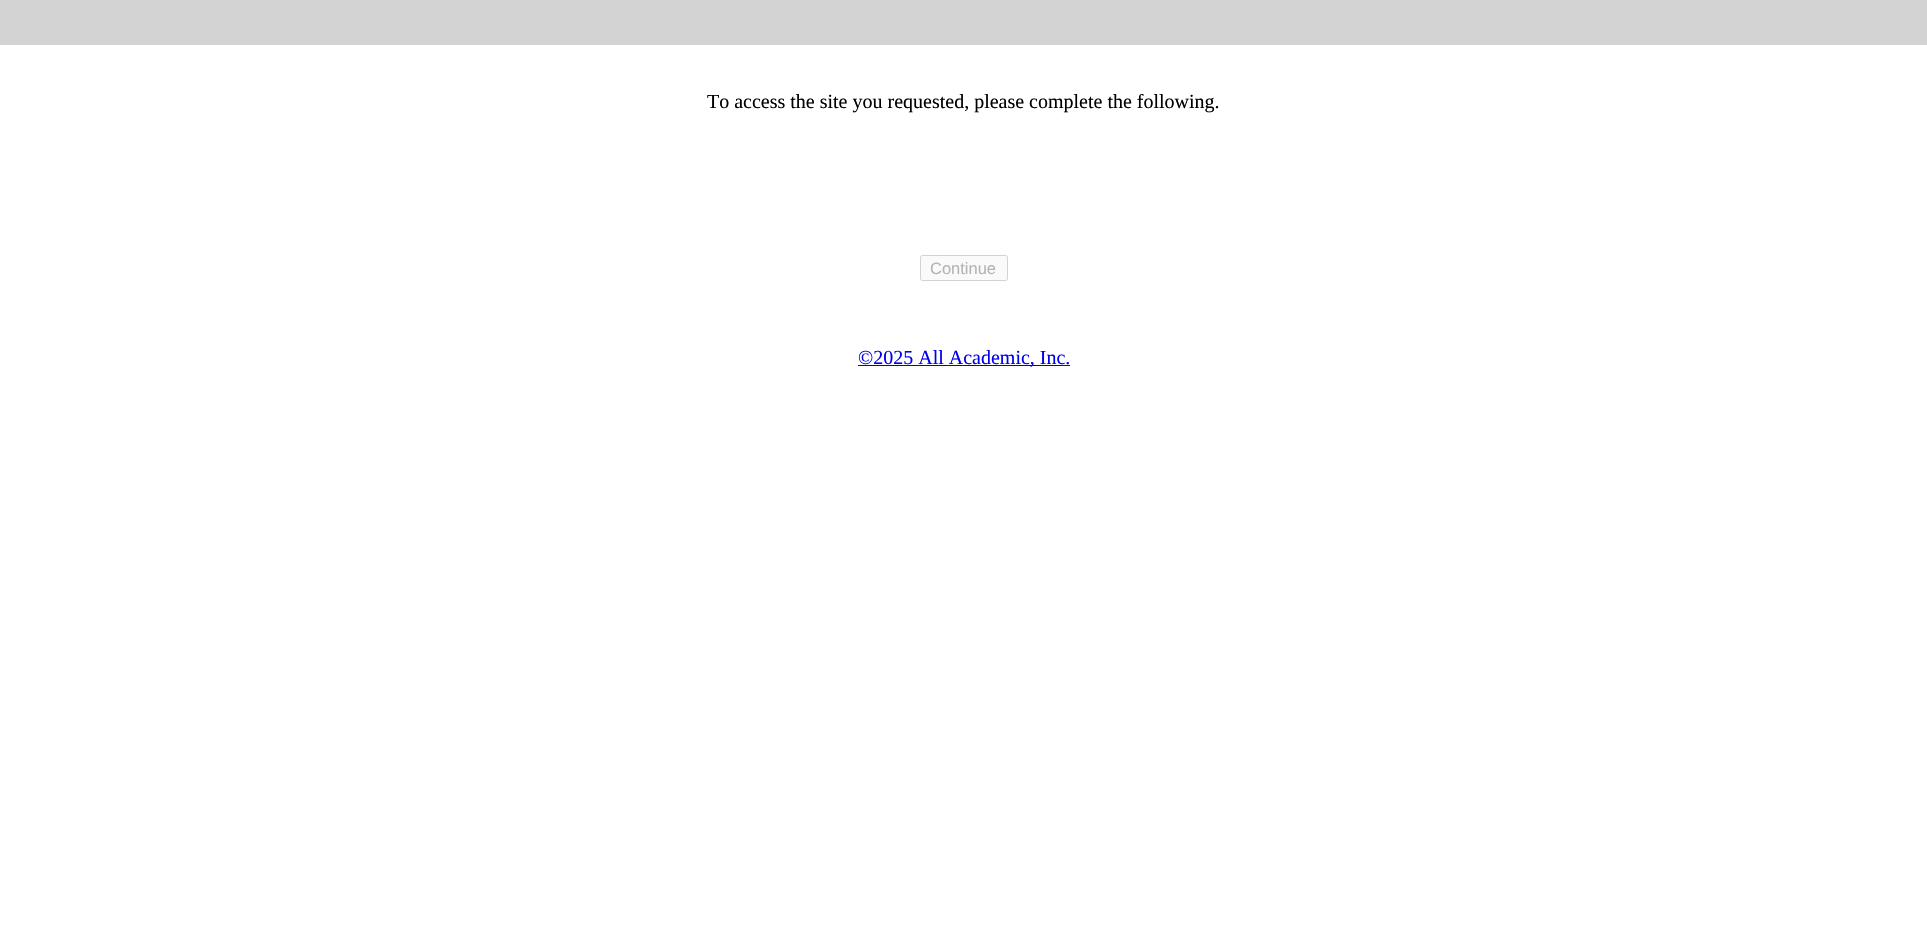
void draw(SkCanvas* canvas) {
    SkPaint paint;
    paint.setAntiAlias(true);
    canvas->clear(0xFFFFFFFF);
    paint.setColor(0xFFD3D3D3);
    canvas->drawRect(SkRect::MakeXYWH(0, 0, 1927, 45), paint);
    SkFont font1(fontMgr->matchFamilyStyle("Liberation Serif", SkFontStyle::Normal()), 20);
    font1.setSubpixel(true);
    paint.setColor(0xFF000000);
    canvas->drawString("To access the site you requested, please complete the following.", 707, 108, font1, paint);
    paint.setColor(0xFFFAFAFA);
    canvas->drawRoundRect(SkRect::MakeXYWH(920.5f, 255.5f, 87, 25), 2, 2, paint);
    paint.setStyle(SkPaint::kStroke_Style);
    paint.setStrokeWidth(1);
    paint.setColor(0xFFD2D2D2);
    canvas->drawRoundRect(SkRect::MakeXYWH(920.5f, 255.5f, 87, 25), 2, 2, paint);
    SkFont font2(fontMgr->matchFamilyStyle("Liberation Sans", SkFontStyle::Normal()), 16.5f);
    font2.setSubpixel(true);
    paint.setStyle(SkPaint::kFill_Style);
    paint.setColor(0xFFB4B4B4);
    canvas->drawString("Continue", 930, 274, font2, paint);
    paint.setColor(0xFF0000EE);
    canvas->drawRect(SkRect::MakeXYWH(858, 365, 212, 1), paint);
    canvas->drawString("©2025 All Academic, Inc.", 858, 364, font1, paint);
}
